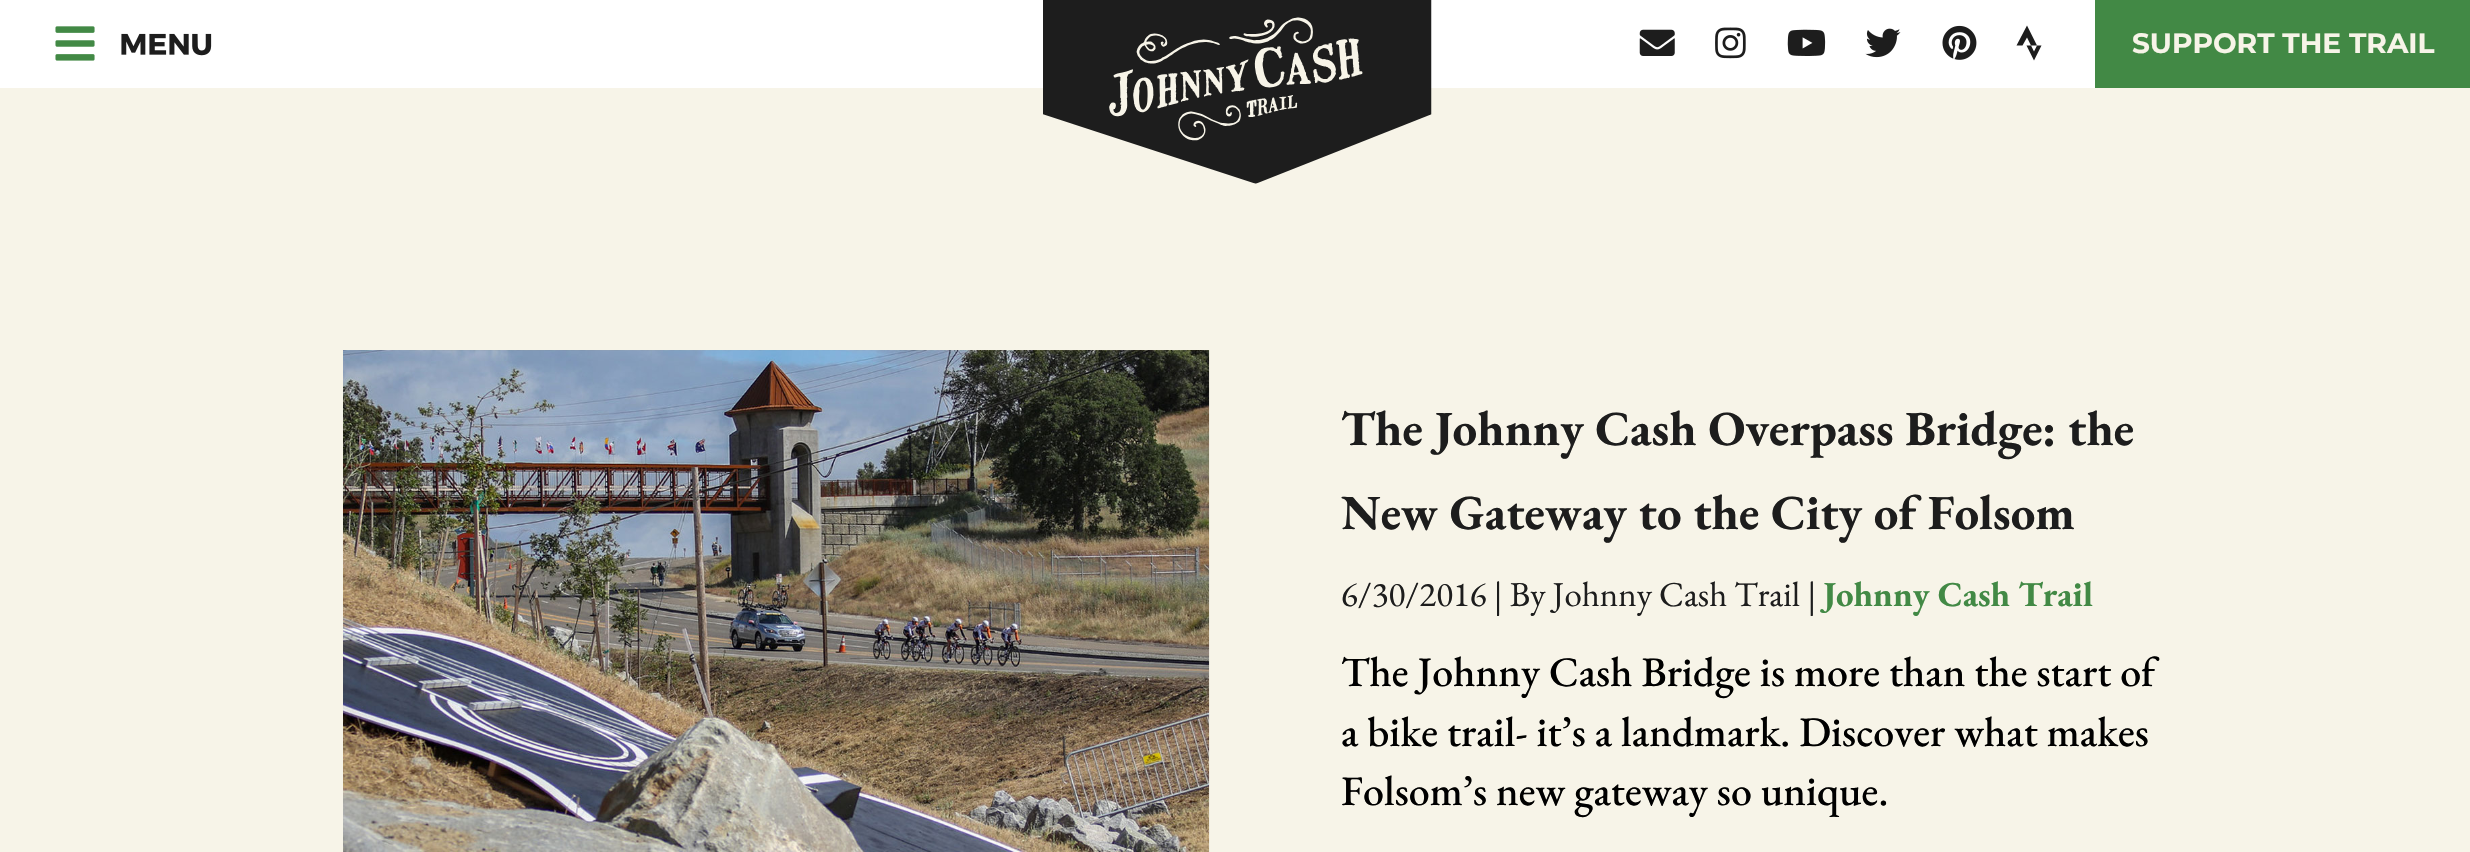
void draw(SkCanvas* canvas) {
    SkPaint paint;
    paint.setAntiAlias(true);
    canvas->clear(0xFFF7F4E8);
    paint.setColor(0xFFFFFFFF);
    canvas->drawRect(SkRect::MakeXYWH(0, 0, 2095, 88), paint);
    canvas->drawImageRect(SkImages::DeferredFromEncodedData(SkData::MakeFromFileName("img1.png")), SkRect::MakeXYWH(1043, 0, 389, 184), SkSamplingOptions());
    canvas->drawImageRect(SkImages::DeferredFromEncodedData(SkData::MakeFromFileName("img2.png")), SkRect::MakeXYWH(55, 26, 157, 35), SkSamplingOptions());
    canvas->drawImageRect(SkImages::DeferredFromEncodedData(SkData::MakeFromFileName("img3.png")), SkRect::MakeXYWH(1639, 29, 36, 27), SkSamplingOptions());
    canvas->drawImageRect(SkImages::DeferredFromEncodedData(SkData::MakeFromFileName("img4.png")), SkRect::MakeXYWH(1715, 27, 31, 32), SkSamplingOptions());
    canvas->drawImageRect(SkImages::DeferredFromEncodedData(SkData::MakeFromFileName("img5.png")), SkRect::MakeXYWH(1787, 29, 39, 27), SkSamplingOptions());
    canvas->drawImageRect(SkImages::DeferredFromEncodedData(SkData::MakeFromFileName("img6.png")), SkRect::MakeXYWH(1865, 28, 36, 30), SkSamplingOptions());
    canvas->drawImageRect(SkImages::DeferredFromEncodedData(SkData::MakeFromFileName("img7.png")), SkRect::MakeXYWH(1942, 25, 35, 35), SkSamplingOptions());
    paint.setColor(0xFF1D1D1D);
    canvas->drawPath(SkPathBuilder().moveTo(2027, 25.5f).lineTo(2037, 45.5f).lineTo(2031, 45.5f).lineTo(2027, 37.5f).lineTo(2022.5f, 45.5f).lineTo(2016.5f, 45.5f).close().moveTo(2037, 45.5f).lineTo(2041.5f, 45.5f).lineTo(2034, 60.5f).lineTo(2026.5f, 45.5f).lineTo(2031, 45.5f).lineTo(2034, 51.5f).close().detach(), paint);
    paint.setColor(0xFF428945);
    canvas->drawRect(SkRect::MakeXYWH(2095, 0, 375, 88), paint);
    SkFont font1(fontMgr->matchFamilyStyle("Montserrat", SkFontStyle::Bold()), 28);
    font1.setSubpixel(true);
    paint.setColor(0xFFF7F4E8);
    canvas->drawString("SUPPORT THE TRAIL", 2132, 53, font1, paint);
    canvas->drawImageRect(SkImages::DeferredFromEncodedData(SkData::MakeFromFileName("img8.png")), SkRect::MakeXYWH(343, 350, 867, 502), SkSamplingOptions());
    SkFont font2(fontMgr->matchFamilyStyle("EB Garamond", SkFontStyle::Bold()), 49);
    font2.setSubpixel(true);
    paint.setColor(0xFF1D1D1D);
    canvas->drawString("The Johnny Cash Overpass Bridge: the", 1341, 445, font2, paint);
    canvas->drawString("New Gateway to the City of Folsom", 1341, 529, font2, paint);
    SkFont font3(fontMgr->matchFamilyStyle("EB Garamond", SkFontStyle::Normal()), 35);
    font3.setSubpixel(true);
    canvas->drawString("6/30/2016 | By Johnny Cash Trail |", 1341, 606, font3, paint);
    SkFont font4(fontMgr->matchFamilyStyle("EB Garamond", SkFontStyle::Bold()), 35);
    font4.setSubpixel(true);
    paint.setColor(0xFF428945);
    canvas->drawString("Johnny Cash Trail", 1823, 606, font4, paint);
    SkFont font5(fontMgr->matchFamilyStyle("EB Garamond", SkFontStyle(500, SkFontStyle::kNormal_Width, SkFontStyle::kUpright_Slant)), 42);
    font5.setSubpixel(true);
    paint.setColor(0xFF000000);
    canvas->drawString("The Johnny Cash Bridge is more than the start of", 1341, 686, font5, paint);
    canvas->drawString("a bike trail- it’s a landmark. Discover what makes", 1341, 746, font5, paint);
    canvas->drawString("Folsom’s new gateway so unique.", 1341, 805, font5, paint);
}
